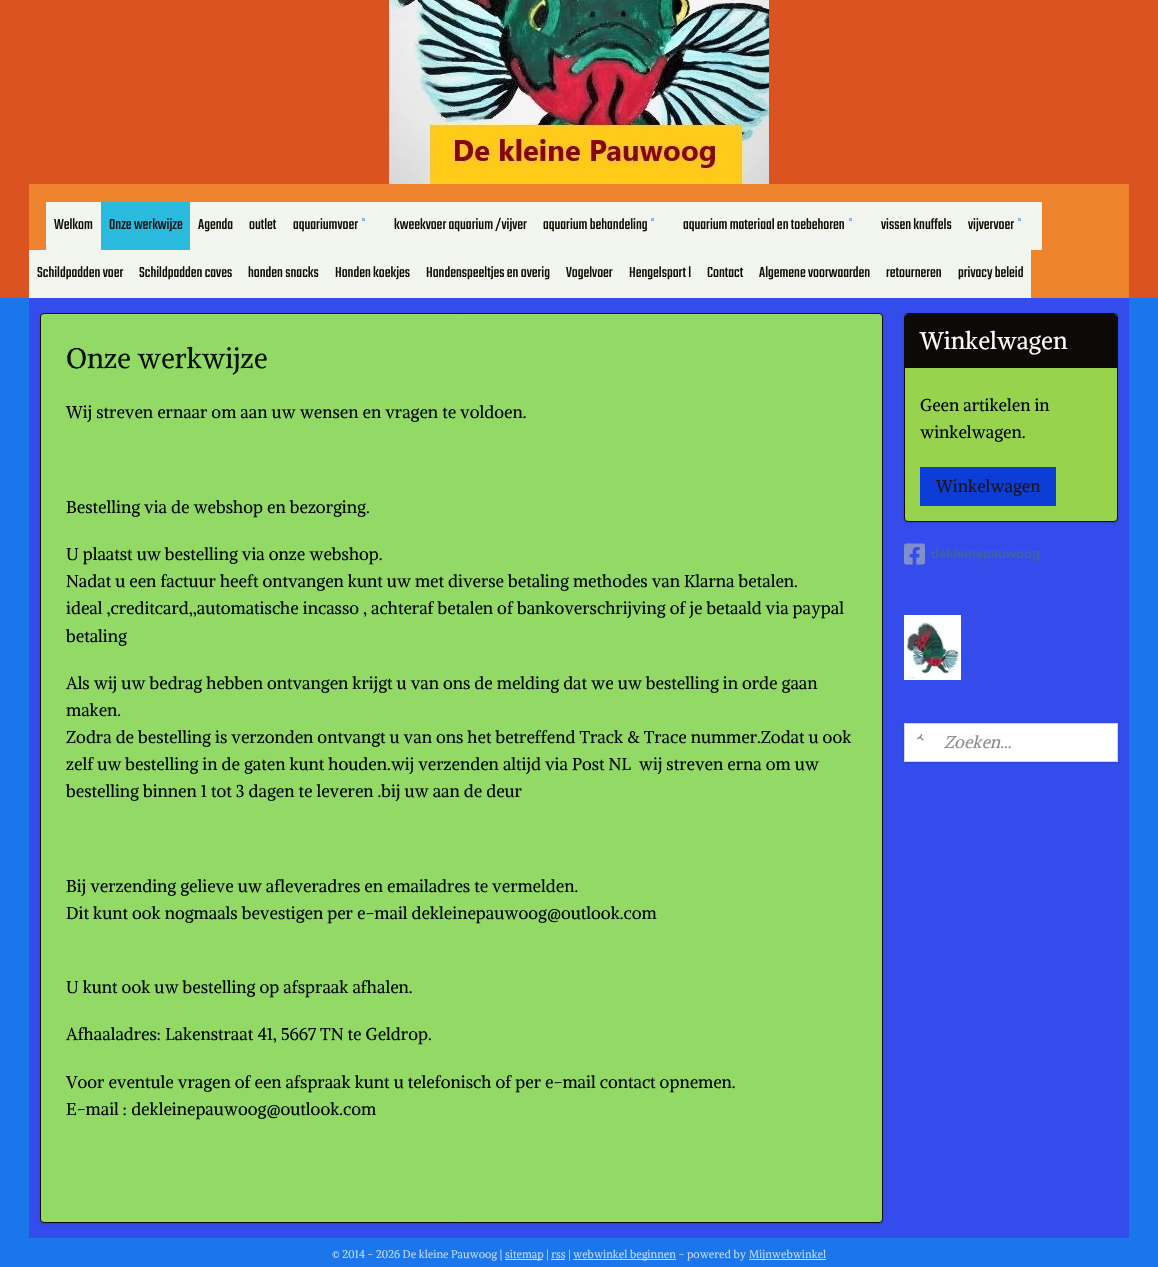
void draw(SkCanvas* canvas) {
    SkPaint paint;
    paint.setAntiAlias(true);
    canvas->clear(0xFF1C76EB);
    paint.setColor(0xFFDB5321);
    canvas->drawRect(SkRect::MakeXYWH(0, 0, 1158, 298), paint);
    canvas->drawImageRect(SkImages::DeferredFromEncodedData(SkData::MakeFromFileName("img1.png")), SkRect::MakeXYWH(389, 0, 380, 184), SkSamplingOptions());
    paint.setColor(0xFFEE832E);
    canvas->drawRect(SkRect::MakeXYWH(29, 184, 1100, 114), paint);
    paint.setColor(0xFFF2F5ED);
    canvas->drawRect(SkRect::MakeXYWH(46, 202, 55, 48), paint);
    SkFont font1(fontMgr->matchFamilyStyle("Teko", SkFontStyle::Normal()), 16);
    font1.setSubpixel(true);
    paint.setColor(0xFF0E0F02);
    canvas->drawString("Welkom", 54, 229, font1, paint);
    paint.setColor(0xFF2ABADE);
    canvas->drawRect(SkRect::MakeXYWH(101, 202, 89, 48), paint);
    paint.setColor(0xFF171516);
    canvas->drawString("Onze werkwijze", 109, 229, font1, paint);
    paint.setColor(0xFFF2F5ED);
    canvas->drawRect(SkRect::MakeXYWH(190, 202, 95, 48), paint);
    paint.setColor(0xFF0E0F02);
    canvas->drawString("Agenda", 198, 229, font1, paint);
    canvas->drawString("outlet", 249, 229, font1, paint);
    paint.setColor(0xFFF2F5ED);
    canvas->drawRect(SkRect::MakeXYWH(285, 202, 390, 48), paint);
    paint.setColor(0xFF0E0F02);
    canvas->drawString("aquariumvoer", 293, 229, font1, paint);
    paint.setColor(0xFF8BB9ED);
    canvas->drawRect(SkRect::MakeXYWH(362, 218, 3, 3), paint);
    paint.setColor(0xFF0E0F02);
    canvas->drawString("kweekvoer aquarium /vijver", 394, 229, font1, paint);
    canvas->drawString("aquarium behandeling", 543, 229, font1, paint);
    paint.setColor(0xFF8BB9ED);
    canvas->drawRect(SkRect::MakeXYWH(651, 218, 3, 3), paint);
    paint.setColor(0xFFF2F5ED);
    canvas->drawRect(SkRect::MakeXYWH(675, 202, 367, 48), paint);
    paint.setColor(0xFF0E0F02);
    canvas->drawString("aquarium materiaal en toebehoren", 683, 229, font1, paint);
    paint.setColor(0xFF8BB9ED);
    canvas->drawRect(SkRect::MakeXYWH(849, 218, 3, 3), paint);
    paint.setColor(0xFF0E0F02);
    canvas->drawString("vissen knuffels", 881, 229, font1, paint);
    canvas->drawString("vijvervoer", 968, 229, font1, paint);
    paint.setColor(0xFF8BB9ED);
    canvas->drawRect(SkRect::MakeXYWH(1018, 218, 3, 3), paint);
    paint.setColor(0xFFF2F5ED);
    canvas->drawRect(SkRect::MakeXYWH(29, 250, 1002, 48), paint);
    paint.setColor(0xFF0E0F02);
    canvas->drawString("Schildpadden voer", 37, 277, font1, paint);
    canvas->drawString("Schildpadden caves", 139, 277, font1, paint);
    canvas->drawString("honden snacks", 248, 277, font1, paint);
    canvas->drawString("Honden koekjes", 335, 277, font1, paint);
    canvas->drawString("Hondenspeeltjes en overig", 426, 277, font1, paint);
    canvas->drawString("Vogelvoer", 566, 277, font1, paint);
    canvas->drawString("Hengelsport l", 629, 277, font1, paint);
    canvas->drawString("Contact", 707, 277, font1, paint);
    canvas->drawString("Algemene voorwaarden", 759, 277, font1, paint);
    canvas->drawString("retourneren", 886, 277, font1, paint);
    canvas->drawString("privacy beleid", 958, 277, font1, paint);
    paint.setColor(0xFF344CEB);
    canvas->drawRect(SkRect::MakeXYWH(29, 298, 1100, 940), paint);
    paint.setColor(0x26000000);
    paint.setMaskFilter(SkMaskFilter::MakeBlur(kNormal_SkBlurStyle, 1));
    canvas->drawRoundRect(SkRect::MakeXYWH(40, 314, 843, 910), 4, 4, paint);
    paint.setMaskFilter(nullptr);
    paint.setColor(0xFF92D966);
    canvas->drawRoundRect(SkRect::MakeXYWH(40.5f, 313.5f, 842, 909), 3.5f, 3.5f, paint);
    paint.setStyle(SkPaint::kStroke_Style);
    paint.setStrokeWidth(1);
    paint.setColor(0xFF0D0C08);
    canvas->drawRoundRect(SkRect::MakeXYWH(40.5f, 313.5f, 842, 909), 3.5f, 3.5f, paint);
    SkFont font2(fontMgr->matchFamilyStyle("Alike Angular", SkFontStyle::Normal()), 28);
    font2.setSubpixel(true);
    paint.setStyle(SkPaint::kFill_Style);
    paint.setColor(0xFF041202);
    canvas->drawString("Onze werkwijze", 66, 368, font2, paint);
    SkFont font3(fontMgr->matchFamilyStyle("Alike Angular", SkFontStyle::Normal()), 17);
    font3.setSubpixel(true);
    paint.setColor(0xFF010608);
    canvas->drawString("Wij streven ernaar om aan uw wensen en vragen te voldoen.", 66, 418, font3, paint);
    canvas->drawString("Bestelling via de webshop en bezorging.", 66, 513, font3, paint);
    canvas->drawString("U plaatst uw bestelling via onze webshop.", 66, 560, font3, paint);
    canvas->drawString("Nadat u een factuur heeft ontvangen kunt uw met diverse betaling methodes van Klarna betalen.", 66, 587, font3, paint);
    canvas->drawString("ideal ,creditcard,,automatische incasso , achteraf betalen of bankoverschrijving of je betaald via paypal", 66, 614, font3, paint);
    canvas->drawString("betaling", 66, 642, font3, paint);
    canvas->drawString("Als wij uw bedrag hebben ontvangen krijgt u van ons de melding dat we uw bestelling in orde gaan", 66, 689, font3, paint);
    canvas->drawString("maken.", 66, 716, font3, paint);
    canvas->drawString("Zodra de bestelling is verzonden ontvangt u van ons het betreffend Track & Trace nummer.Zodat u ook", 66, 743, font3, paint);
    canvas->drawString("zelf uw bestelling in de gaten kunt houden.wij verzenden altijd via Post NL  wij streven erna om uw", 66, 770, font3, paint);
    canvas->drawString("bestelling binnen 1 tot 3 dagen te leveren .bij uw aan de deur", 66, 797, font3, paint);
    canvas->drawString("Bij verzending gelieve uw afleveradres en emailadres te vermelden.", 66, 892, font3, paint);
    canvas->drawString("Dit kunt ook nogmaals bevestigen per e-mail dekleinepauwoog@outlook.com", 66, 919, font3, paint);
    canvas->drawString("U kunt ook uw bestelling op afspraak afhalen.", 66, 993, font3, paint);
    canvas->drawString("Afhaaladres: Lakenstraat 41, 5667 TN te Geldrop.", 66, 1040, font3, paint);
    canvas->drawString("Voor eventule vragen of een afspraak kunt u telefonisch of per e-mail contact opnemen.", 66, 1088, font3, paint);
    canvas->drawString("E-mail : dekleinepauwoog@outlook.com", 66, 1115, font3, paint);
    paint.setColor(0x26000000);
    paint.setMaskFilter(SkMaskFilter::MakeBlur(kNormal_SkBlurStyle, 1));
    canvas->drawRoundRect(SkRect::MakeXYWH(904, 314, 214, 209), 4, 4, paint);
    paint.setMaskFilter(nullptr);
    paint.setColor(0xFF97D34C);
    canvas->drawRoundRect(SkRect::MakeXYWH(904.5f, 313.5f, 213, 208), 3.5f, 3.5f, paint);
    paint.setStyle(SkPaint::kStroke_Style);
    paint.setColor(0xFF0D0C08);
    canvas->drawRoundRect(SkRect::MakeXYWH(904.5f, 313.5f, 213, 208), 3.5f, 3.5f, paint);
    paint.setStyle(SkPaint::kFill_Style);
    paint.setColor(0xFF0D0907);
    canvas->drawPath(SkPathBuilder().moveTo(908, 314).lineTo(1114, 314).cubicTo(1115.5f, 314, 1117, 315.5f, 1117, 317).lineTo(1117, 368).lineTo(905, 368).lineTo(905, 317).cubicTo(905, 315.5f, 906.5f, 314, 908, 314).close().detach(), paint);
    SkFont font4(fontMgr->matchFamilyStyle("Alike Angular", SkFontStyle::Normal()), 24);
    font4.setSubpixel(true);
    paint.setColor(0xFFFFFFFF);
    canvas->drawString("Winkelwagen", 920, 349, font4, paint);
    paint.setColor(0xFF010608);
    canvas->drawString("Geen artikelen in", 920, 411, font3, paint);
    canvas->drawString("winkelwagen.", 920, 438, font3, paint);
    paint.setColor(0xFF0D3DD7);
    canvas->drawRect(SkRect::MakeXYWH(920, 467, 136, 39), paint);
    paint.setColor(0xFF171516);
    canvas->drawString("Winkelwagen", 936, 492, font3, paint);
    canvas->drawImageRect(SkImages::DeferredFromEncodedData(SkData::MakeFromFileName("img2.png")), SkRect::MakeXYWH(904, 543, 21, 22), SkSamplingOptions());
    SkFont font5(fontMgr->matchFamilyStyle("Liberation Sans", SkFontStyle::Bold()), 13);
    font5.setSubpixel(true);
    paint.setColor(0xFF4062A3);
    canvas->drawString("dekleinepauwoog", 931, 558, font5, paint);
    canvas->drawImageRect(SkImages::DeferredFromEncodedData(SkData::MakeFromFileName("img3.png")), SkRect::MakeXYWH(904, 615, 57, 65), SkSamplingOptions());
    paint.setColor(0x26000000);
    paint.setMaskFilter(SkMaskFilter::MakeBlur(kNormal_SkBlurStyle, 1));
    canvas->drawRect(SkRect::MakeXYWH(904, 724, 214, 39), paint);
    paint.setMaskFilter(nullptr);
    paint.setColor(0xFFFFFFFF);
    canvas->drawRect(SkRect::MakeXYWH(904.5f, 723.5f, 213, 38), paint);
    paint.setStyle(SkPaint::kStroke_Style);
    paint.setColor(0xFFD3D5D9);
    canvas->drawRect(SkRect::MakeXYWH(904.5f, 723.5f, 213, 38), paint);
    canvas->drawImageRect(SkImages::DeferredFromEncodedData(SkData::MakeFromFileName("img4.png")), SkRect::MakeXYWH(917, 734, 7, 7), SkSamplingOptions());
    SkFont font6(fontMgr->matchFamilyStyle("Alike Angular", SkFontStyle::Italic()), 17);
    font6.setSubpixel(true);
    paint.setStyle(SkPaint::kFill_Style);
    paint.setColor(0xFF898C91);
    canvas->drawString("Zoeken...", 944, 748, font6, paint);
    SkFont font7(fontMgr->matchFamilyStyle("Alike Angular", SkFontStyle::Normal()), 11);
    font7.setSubpixel(true);
    paint.setColor(0xFFBBD6F9);
    canvas->drawString("© 2014 - 2026 De kleine Pauwoog |", 332, 1258, font7, paint);
    canvas->drawRect(SkRect::MakeXYWH(505, 1259, 38, 1), paint);
    canvas->drawString("sitemap | rss |", 505, 1258, font7, paint);
    canvas->drawRect(SkRect::MakeXYWH(573, 1259, 103, 1), paint);
    canvas->drawString("webwinkel beginnen - powered by", 573, 1258, font7, paint);
    canvas->drawRect(SkRect::MakeXYWH(749, 1259, 77, 1), paint);
    canvas->drawString("Mijnwebwinkel", 749, 1258, font7, paint);
    canvas->drawRect(SkRect::MakeXYWH(551, 1259, 14, 1), paint);
}
